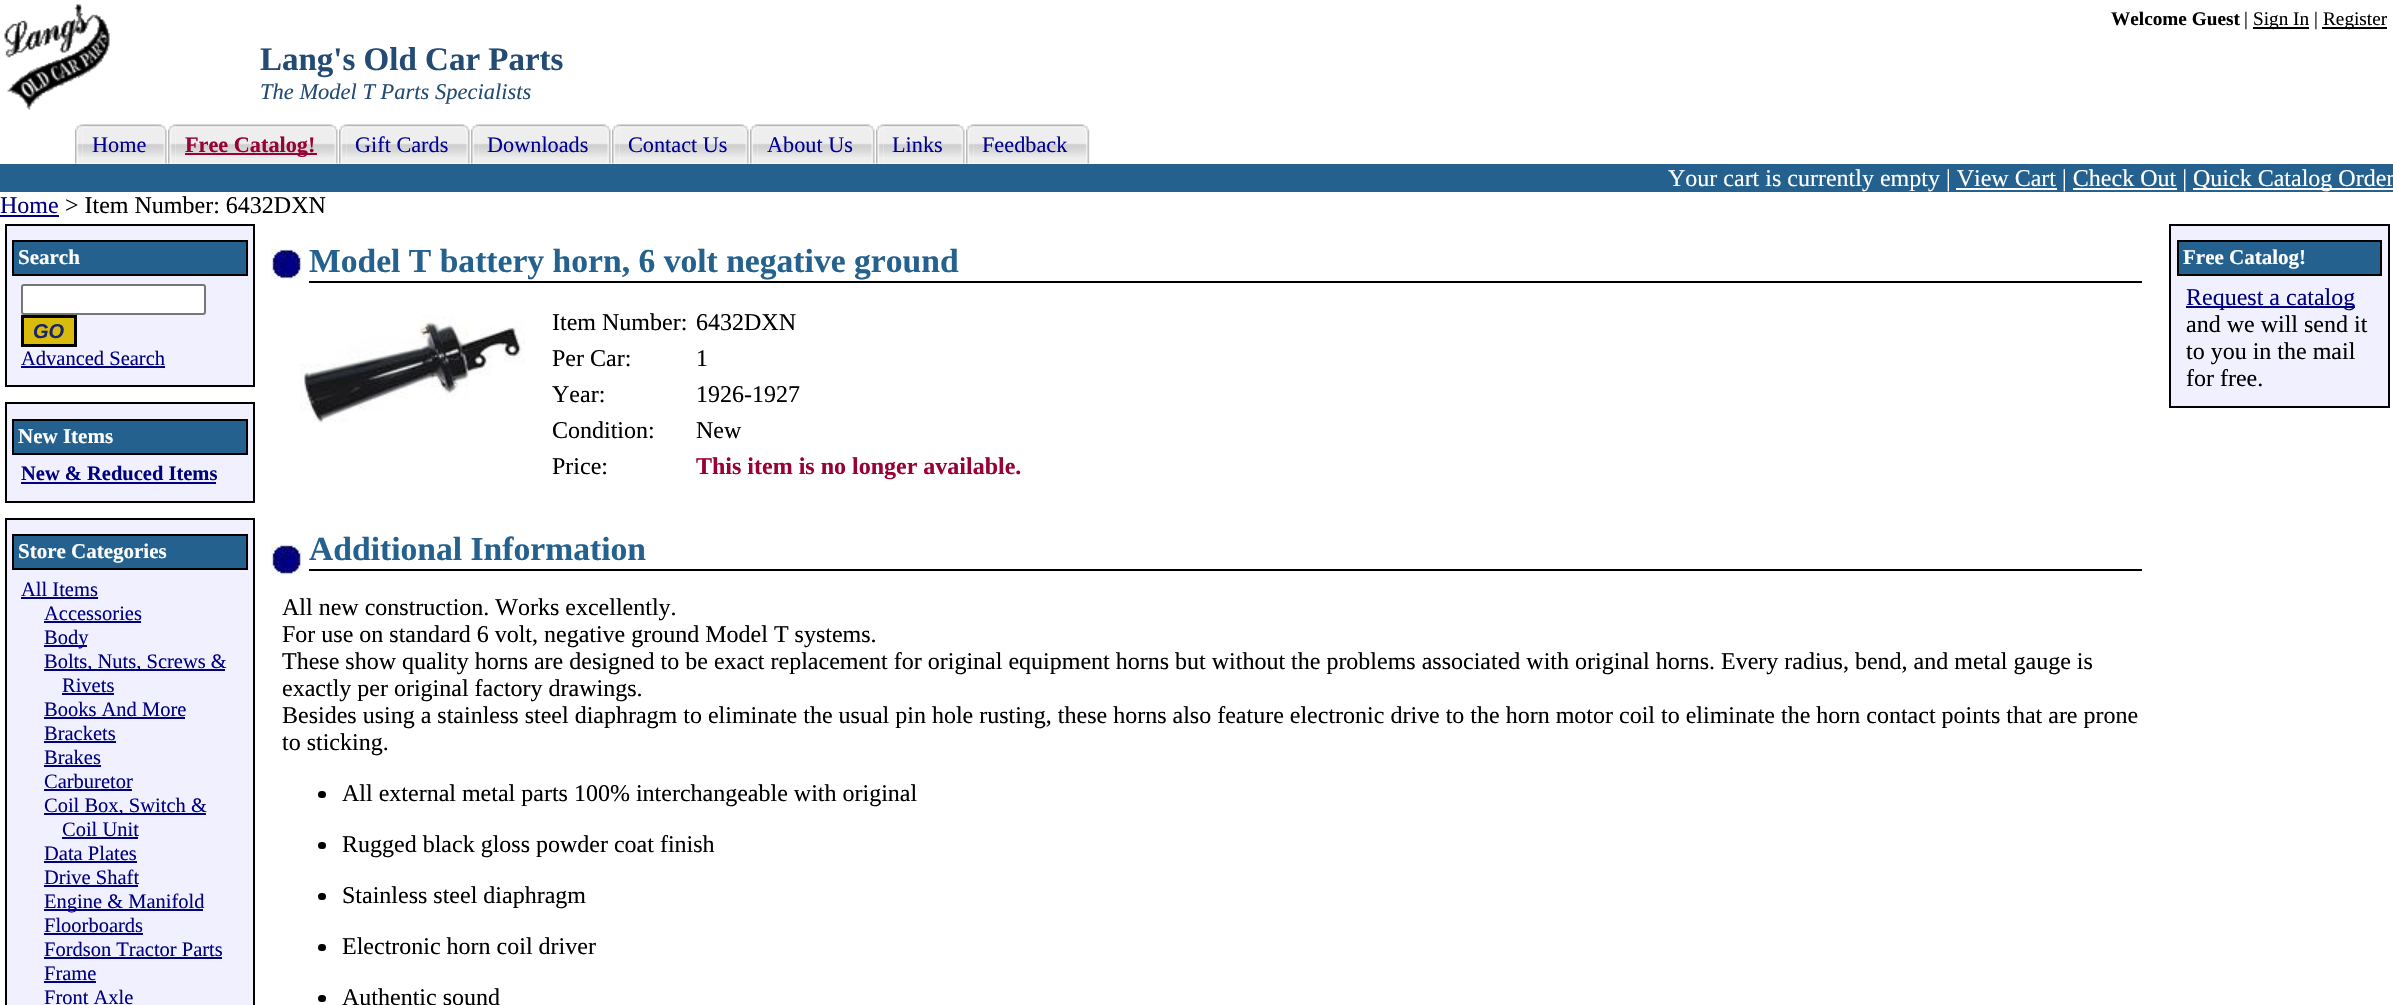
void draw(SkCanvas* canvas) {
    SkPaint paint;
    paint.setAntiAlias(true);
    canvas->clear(0xFFFFFFFF);
    canvas->drawImageRect(SkImages::DeferredFromEncodedData(SkData::MakeFromFileName("img1.png")), SkRect::MakeXYWH(4, 4, 106, 106), SkSamplingOptions());
    SkFont font1(fontMgr->matchFamilyStyle("Liberation Serif", SkFontStyle::Bold()), 19.25f);
    font1.setSubpixel(true);
    paint.setColor(0xFF000000);
    canvas->drawString("Welcome Guest", 2111, 25, font1, paint);
    SkFont font2(fontMgr->matchFamilyStyle("Liberation Serif", SkFontStyle::Normal()), 19.25f);
    font2.setSubpixel(true);
    canvas->drawString("|", 2244, 25, font2, paint);
    canvas->drawRect(SkRect::MakeXYWH(2253, 27, 56, 2), paint);
    canvas->drawString("Sign In |", 2253, 25, font2, paint);
    canvas->drawRect(SkRect::MakeXYWH(2322, 27, 65, 2), paint);
    canvas->drawString("Register", 2323, 25, font2, paint);
    SkFont font3(fontMgr->matchFamilyStyle("Liberation Serif", SkFontStyle::Bold()), 33);
    font3.setSubpixel(true);
    paint.setColor(0xFF234B74);
    canvas->drawString("Lang's Old Car Parts", 260, 70, font3, paint);
    SkFont font4(fontMgr->matchFamilyStyle("Liberation Serif", SkFontStyle::Italic()), 22.5f);
    font4.setSubpixel(true);
    canvas->drawString("The Model T Parts Specialists", 260, 99, font4, paint);
    canvas->drawImageRect(SkImages::DeferredFromEncodedData(SkData::MakeFromFileName("img2.png")), SkRect::MakeXYWH(75, 124, 8, 40), SkSamplingOptions());
    canvas->drawImageRect(SkImages::DeferredFromEncodedData(SkData::MakeFromFileName("img3.png")), SkRect::MakeXYWH(82, 124, 85, 40), SkSamplingOptions());
    SkFont font5(fontMgr->matchFamilyStyle("Liberation Serif", SkFontStyle::Normal()), 22.25f);
    font5.setSubpixel(true);
    paint.setColor(0xFF000099);
    canvas->drawString("Home", 92, 152, font5, paint);
    canvas->drawImageRect(SkImages::DeferredFromEncodedData(SkData::MakeFromFileName("img2.png")), SkRect::MakeXYWH(168, 124, 8, 40), SkSamplingOptions());
    canvas->drawImageRect(SkImages::DeferredFromEncodedData(SkData::MakeFromFileName("img4.png")), SkRect::MakeXYWH(175, 124, 163, 40), SkSamplingOptions());
    paint.setColor(0xFF990033);
    canvas->drawRect(SkRect::MakeXYWH(185, 153, 132, 2), paint);
    SkFont font6(fontMgr->matchFamilyStyle("Liberation Serif", SkFontStyle::Bold()), 22.25f);
    font6.setSubpixel(true);
    canvas->drawString("Free Catalog!", 185, 152, font6, paint);
    canvas->drawImageRect(SkImages::DeferredFromEncodedData(SkData::MakeFromFileName("img5.png")), SkRect::MakeXYWH(339, 124, 8, 40), SkSamplingOptions());
    canvas->drawImageRect(SkImages::DeferredFromEncodedData(SkData::MakeFromFileName("img6.png")), SkRect::MakeXYWH(346, 124, 124, 40), SkSamplingOptions());
    paint.setColor(0xFF000099);
    canvas->drawString("Gift Cards", 355, 152, font5, paint);
    canvas->drawImageRect(SkImages::DeferredFromEncodedData(SkData::MakeFromFileName("img5.png")), SkRect::MakeXYWH(471, 124, 8, 40), SkSamplingOptions());
    canvas->drawImageRect(SkImages::DeferredFromEncodedData(SkData::MakeFromFileName("img7.png")), SkRect::MakeXYWH(478, 124, 133, 40), SkSamplingOptions());
    canvas->drawString("Downloads", 487, 152, font5, paint);
    canvas->drawImageRect(SkImages::DeferredFromEncodedData(SkData::MakeFromFileName("img2.png")), SkRect::MakeXYWH(612, 124, 8, 40), SkSamplingOptions());
    canvas->drawImageRect(SkImages::DeferredFromEncodedData(SkData::MakeFromFileName("img8.png")), SkRect::MakeXYWH(619, 124, 130, 40), SkSamplingOptions());
    canvas->drawString("Contact Us", 628, 152, font5, paint);
    canvas->drawImageRect(SkImages::DeferredFromEncodedData(SkData::MakeFromFileName("img5.png")), SkRect::MakeXYWH(750, 124, 8, 40), SkSamplingOptions());
    canvas->drawImageRect(SkImages::DeferredFromEncodedData(SkData::MakeFromFileName("img9.png")), SkRect::MakeXYWH(757, 124, 118, 40), SkSamplingOptions());
    canvas->drawString("About Us", 767, 152, font5, paint);
    canvas->drawImageRect(SkImages::DeferredFromEncodedData(SkData::MakeFromFileName("img2.png")), SkRect::MakeXYWH(876, 124, 8, 40), SkSamplingOptions());
    canvas->drawImageRect(SkImages::DeferredFromEncodedData(SkData::MakeFromFileName("img10.png")), SkRect::MakeXYWH(883, 124, 82, 40), SkSamplingOptions());
    canvas->drawString("Links", 892, 152, font5, paint);
    canvas->drawImageRect(SkImages::DeferredFromEncodedData(SkData::MakeFromFileName("img2.png")), SkRect::MakeXYWH(966, 124, 8, 40), SkSamplingOptions());
    canvas->drawImageRect(SkImages::DeferredFromEncodedData(SkData::MakeFromFileName("img11.png")), SkRect::MakeXYWH(973, 124, 117, 40), SkSamplingOptions());
    canvas->drawString("Feedback", 982, 152, font5, paint);
    paint.setColor(0xFF24618E);
    canvas->drawRect(SkRect::MakeXYWH(0, 164, 2393, 28), paint);
    SkFont font7(fontMgr->matchFamilyStyle("Liberation Serif", SkFontStyle::Normal()), 24);
    font7.setSubpixel(true);
    paint.setColor(0xFFFFFFFF);
    canvas->drawString("Your cart is currently empty | View Cart | Check Out |", 1668, 186, font7, paint);
    canvas->drawRect(SkRect::MakeXYWH(2193, 188, 200, 2), paint);
    canvas->drawString("Quick Catalog Order", 2193, 186, font7, paint);
    canvas->drawRect(SkRect::MakeXYWH(1956, 188, 101, 2), paint);
    canvas->drawRect(SkRect::MakeXYWH(2073, 188, 104, 2), paint);
    paint.setColor(0xFF000080);
    canvas->drawString("Home", 0, 213, font7, paint);
    canvas->drawRect(SkRect::MakeXYWH(0, 215, 59, 2), paint);
    paint.setColor(0xFF000000);
    canvas->drawString("> Item Number: 6432DXN", 65, 213, font7, paint);
    paint.setColor(0xFFF0F0FF);
    canvas->drawRect(SkRect::MakeXYWH(6, 225, 248, 161), paint);
    paint.setStyle(SkPaint::kStroke_Style);
    paint.setStrokeWidth(2);
    paint.setColor(0xFF000000);
    canvas->drawRect(SkRect::MakeXYWH(6, 225, 248, 161), paint);
    paint.setStyle(SkPaint::kFill_Style);
    paint.setColor(0xFF24618E);
    canvas->drawRect(SkRect::MakeXYWH(13, 241, 234, 34), paint);
    paint.setStyle(SkPaint::kStroke_Style);
    paint.setColor(0xFF000000);
    canvas->drawRect(SkRect::MakeXYWH(13, 241, 234, 34), paint);
    SkFont font8(fontMgr->matchFamilyStyle("Liberation Serif", SkFontStyle::Bold()), 21);
    font8.setSubpixel(true);
    paint.setStyle(SkPaint::kFill_Style);
    paint.setColor(0xFFFFFFFF);
    canvas->drawString("Search", 18, 264, font8, paint);
    canvas->drawRoundRect(SkRect::MakeXYWH(22, 285, 183, 29), 2, 2, paint);
    paint.setStyle(SkPaint::kStroke_Style);
    paint.setColor(0xFF767676);
    canvas->drawRoundRect(SkRect::MakeXYWH(22, 285, 183, 29), 2, 2, paint);
    paint.setStyle(SkPaint::kFill_Style);
    paint.setColor(0xFFD9BB0C);
    canvas->drawRect(SkRect::MakeXYWH(22.5f, 316.5f, 53, 29), paint);
    paint.setStyle(SkPaint::kStroke_Style);
    paint.setStrokeWidth(3);
    paint.setColor(0xFF000000);
    canvas->drawRect(SkRect::MakeXYWH(22.5f, 316.5f, 53, 29), paint);
    SkFont font9(fontMgr->matchFamilyStyle("Liberation Sans", SkFontStyle::BoldItalic()), 20);
    font9.setSubpixel(true);
    paint.setStyle(SkPaint::kFill_Style);
    paint.setColor(0xFF1A256F);
    canvas->drawString("GO", 33, 338, font9, paint);
    SkFont font10(fontMgr->matchFamilyStyle("Liberation Serif", SkFontStyle::Normal()), 20.5f);
    font10.setSubpixel(true);
    paint.setColor(0xFF000080);
    canvas->drawString("Advanced Search", 21, 365, font10, paint);
    canvas->drawRect(SkRect::MakeXYWH(21, 366, 144, 2), paint);
    paint.setColor(0xFFF0F0FF);
    canvas->drawRect(SkRect::MakeXYWH(6, 403, 248, 99), paint);
    paint.setStyle(SkPaint::kStroke_Style);
    paint.setStrokeWidth(2);
    paint.setColor(0xFF000000);
    canvas->drawRect(SkRect::MakeXYWH(6, 403, 248, 99), paint);
    paint.setStyle(SkPaint::kFill_Style);
    paint.setColor(0xFF24618E);
    canvas->drawRect(SkRect::MakeXYWH(13, 420, 234, 34), paint);
    paint.setStyle(SkPaint::kStroke_Style);
    paint.setColor(0xFF000000);
    canvas->drawRect(SkRect::MakeXYWH(13, 420, 234, 34), paint);
    paint.setStyle(SkPaint::kFill_Style);
    paint.setColor(0xFFFFFFFF);
    canvas->drawString("New Items", 18, 443, font8, paint);
    SkFont font11(fontMgr->matchFamilyStyle("Liberation Serif", SkFontStyle::Bold()), 20.5f);
    font11.setSubpixel(true);
    paint.setColor(0xFF000080);
    canvas->drawString("New & Reduced Items", 21, 480, font11, paint);
    canvas->drawRect(SkRect::MakeXYWH(21, 482, 195, 2), paint);
    paint.setColor(0xFFF0F0FF);
    canvas->drawRect(SkRect::MakeXYWH(6, 519, 248, 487), paint);
    paint.setStyle(SkPaint::kStroke_Style);
    paint.setColor(0xFF000000);
    canvas->drawRect(SkRect::MakeXYWH(6, 519, 248, 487), paint);
    paint.setStyle(SkPaint::kFill_Style);
    paint.setColor(0xFF24618E);
    canvas->drawRect(SkRect::MakeXYWH(13, 535, 234, 34), paint);
    paint.setStyle(SkPaint::kStroke_Style);
    paint.setColor(0xFF000000);
    canvas->drawRect(SkRect::MakeXYWH(13, 535, 234, 34), paint);
    paint.setStyle(SkPaint::kFill_Style);
    paint.setColor(0xFFFFFFFF);
    canvas->drawString("Store Categories", 18, 558, font8, paint);
    paint.setColor(0xFF000080);
    canvas->drawString("All Items", 21, 596, font10, paint);
    canvas->drawRect(SkRect::MakeXYWH(21, 597, 77, 2), paint);
    canvas->drawString("Accessories", 44, 620, font10, paint);
    canvas->drawRect(SkRect::MakeXYWH(44, 621, 97, 2), paint);
    canvas->drawRect(SkRect::MakeXYWH(44, 645, 43, 2), paint);
    canvas->drawString("Body", 44, 644, font10, paint);
    canvas->drawRect(SkRect::MakeXYWH(44, 669, 181, 2), paint);
    canvas->drawString("Bolts, Nuts, Screws &", 44, 668, font10, paint);
    canvas->drawString("Rivets", 62, 692, font10, paint);
    canvas->drawRect(SkRect::MakeXYWH(62, 693, 52, 2), paint);
    canvas->drawString("Books And More", 44, 716, font10, paint);
    canvas->drawRect(SkRect::MakeXYWH(44, 717, 141, 2), paint);
    canvas->drawString("Brackets", 44, 740, font10, paint);
    canvas->drawRect(SkRect::MakeXYWH(44, 741, 72, 2), paint);
    canvas->drawString("Brakes", 44, 764, font10, paint);
    canvas->drawRect(SkRect::MakeXYWH(44, 765, 57, 2), paint);
    canvas->drawString("Carburetor", 44, 788, font10, paint);
    canvas->drawRect(SkRect::MakeXYWH(44, 789, 88, 2), paint);
    canvas->drawRect(SkRect::MakeXYWH(44, 813, 162, 2), paint);
    canvas->drawString("Coil Box, Switch &", 44, 812, font10, paint);
    canvas->drawString("Coil Unit", 62, 836, font10, paint);
    canvas->drawRect(SkRect::MakeXYWH(62, 837, 76, 2), paint);
    canvas->drawString("Data Plates", 44, 860, font10, paint);
    canvas->drawRect(SkRect::MakeXYWH(44, 861, 93, 2), paint);
    canvas->drawString("Drive Shaft", 44, 884, font10, paint);
    canvas->drawRect(SkRect::MakeXYWH(44, 885, 94, 2), paint);
    canvas->drawRect(SkRect::MakeXYWH(44, 909, 159, 2), paint);
    canvas->drawString("Engine & Manifold", 44, 908, font10, paint);
    canvas->drawString("Floorboards", 44, 932, font10, paint);
    canvas->drawRect(SkRect::MakeXYWH(44, 933, 99, 2), paint);
    canvas->drawString("Fordson Tractor Parts", 44, 956, font10, paint);
    canvas->drawRect(SkRect::MakeXYWH(44, 957, 178, 2), paint);
    canvas->drawString("Frame", 44, 980, font10, paint);
    canvas->drawRect(SkRect::MakeXYWH(44, 981, 52, 2), paint);
    canvas->drawString("Front Axle", 44, 1004, font10, paint);
    canvas->drawImageRect(SkImages::DeferredFromEncodedData(SkData::MakeFromFileName("img12.png")), SkRect::MakeXYWH(271, 249, 31, 30), SkSamplingOptions());
    paint.setColor(0xFF000000);
    canvas->drawRect(SkRect::MakeXYWH(309, 281, 1833, 2), paint);
    SkFont font12(fontMgr->matchFamilyStyle("Liberation Serif", SkFontStyle::Bold()), 33.6f);
    font12.setSubpixel(true);
    paint.setColor(0xFF24618E);
    canvas->drawString("Model T battery horn, 6 volt negative ground", 309, 272, font12, paint);
    canvas->drawImageRect(SkImages::DeferredFromEncodedData(SkData::MakeFromFileName("img13.png")), SkRect::MakeXYWH(300, 315, 225, 108), SkSamplingOptions());
    paint.setColor(0xFF000000);
    canvas->drawString("Item Number:", 552, 330, font7, paint);
    canvas->drawString("6432DXN", 696, 330, font7, paint);
    canvas->drawString("Per Car:", 552, 366, font7, paint);
    canvas->drawString("1", 696, 366, font7, paint);
    canvas->drawString("Year:", 552, 402, font7, paint);
    canvas->drawString("1926-1927", 696, 402, font7, paint);
    canvas->drawString("Condition:", 552, 438, font7, paint);
    canvas->drawString("New", 696, 438, font7, paint);
    canvas->drawString("Price:", 552, 474, font7, paint);
    SkFont font13(fontMgr->matchFamilyStyle("Liberation Serif", SkFontStyle::Bold()), 24);
    font13.setSubpixel(true);
    paint.setColor(0xFF990033);
    canvas->drawString("This item is no longer available.", 696, 474, font13, paint);
    canvas->drawImageRect(SkImages::DeferredFromEncodedData(SkData::MakeFromFileName("img14.png")), SkRect::MakeXYWH(271, 544, 31, 31), SkSamplingOptions());
    paint.setColor(0xFF000000);
    canvas->drawRect(SkRect::MakeXYWH(309, 569, 1833, 2), paint);
    paint.setColor(0xFF24618E);
    canvas->drawString("Additional Information", 309, 560, font12, paint);
    paint.setColor(0xFF000000);
    canvas->drawString("All new construction. Works excellently.", 282, 615, font7, paint);
    canvas->drawString("For use on standard 6 volt, negative ground Model T systems.", 282, 642, font7, paint);
    canvas->drawString("These show quality horns are designed to be exact replacement for original equipment horns but without the problems associated with original horns. Every radius, bend, and metal gauge is", 282, 669, font7, paint);
    canvas->drawString("exactly per original factory drawings.", 282, 696, font7, paint);
    canvas->drawString("Besides using a stainless steel diaphragm to eliminate the usual pin hole rusting, these horns also feature electronic drive to the horn motor coil to eliminate the horn contact points that are prone", 282, 723, font7, paint);
    canvas->drawString("to sticking.", 282, 750, font7, paint);
    canvas->drawRoundRect(SkRect::MakeXYWH(318, 791, 8, 7), 3.5f, 3.5f, paint);
    canvas->drawString("All external metal parts 100% interchangeable with original", 342, 801, font7, paint);
    canvas->drawRoundRect(SkRect::MakeXYWH(318, 842, 8, 7), 3.5f, 3.5f, paint);
    canvas->drawString("Rugged black gloss powder coat finish", 342, 852, font7, paint);
    canvas->drawRoundRect(SkRect::MakeXYWH(318, 893, 8, 7), 3.5f, 3.5f, paint);
    canvas->drawString("Stainless steel diaphragm", 342, 903, font7, paint);
    canvas->drawRoundRect(SkRect::MakeXYWH(318, 944, 8, 7), 3.5f, 3.5f, paint);
    canvas->drawString("Electronic horn coil driver", 342, 954, font7, paint);
    canvas->drawRoundRect(SkRect::MakeXYWH(318, 995, 8, 7), 3.5f, 3.5f, paint);
    canvas->drawString("Authentic sound", 342, 1005, font7, paint);
    paint.setColor(0xFFF0F0FF);
    canvas->drawRect(SkRect::MakeXYWH(2170, 225, 219, 182), paint);
    paint.setStyle(SkPaint::kStroke_Style);
    paint.setColor(0xFF000000);
    canvas->drawRect(SkRect::MakeXYWH(2170, 225, 219, 182), paint);
    paint.setStyle(SkPaint::kFill_Style);
    paint.setColor(0xFF24618E);
    canvas->drawRect(SkRect::MakeXYWH(2178, 241, 203, 34), paint);
    paint.setStyle(SkPaint::kStroke_Style);
    paint.setColor(0xFF000000);
    canvas->drawRect(SkRect::MakeXYWH(2178, 241, 203, 34), paint);
    paint.setStyle(SkPaint::kFill_Style);
    paint.setColor(0xFFFFFFFF);
    canvas->drawString("Free Catalog!", 2183, 264, font8, paint);
    paint.setColor(0xFF000080);
    canvas->drawRect(SkRect::MakeXYWH(2186, 306, 169, 2), paint);
    canvas->drawString("Request a catalog", 2186, 305, font7, paint);
    paint.setColor(0xFF000000);
    canvas->drawString("and we will send it", 2186, 332, font7, paint);
    canvas->drawString("to you in the mail", 2186, 359, font7, paint);
    canvas->drawString("for free.", 2186, 386, font7, paint);
}
